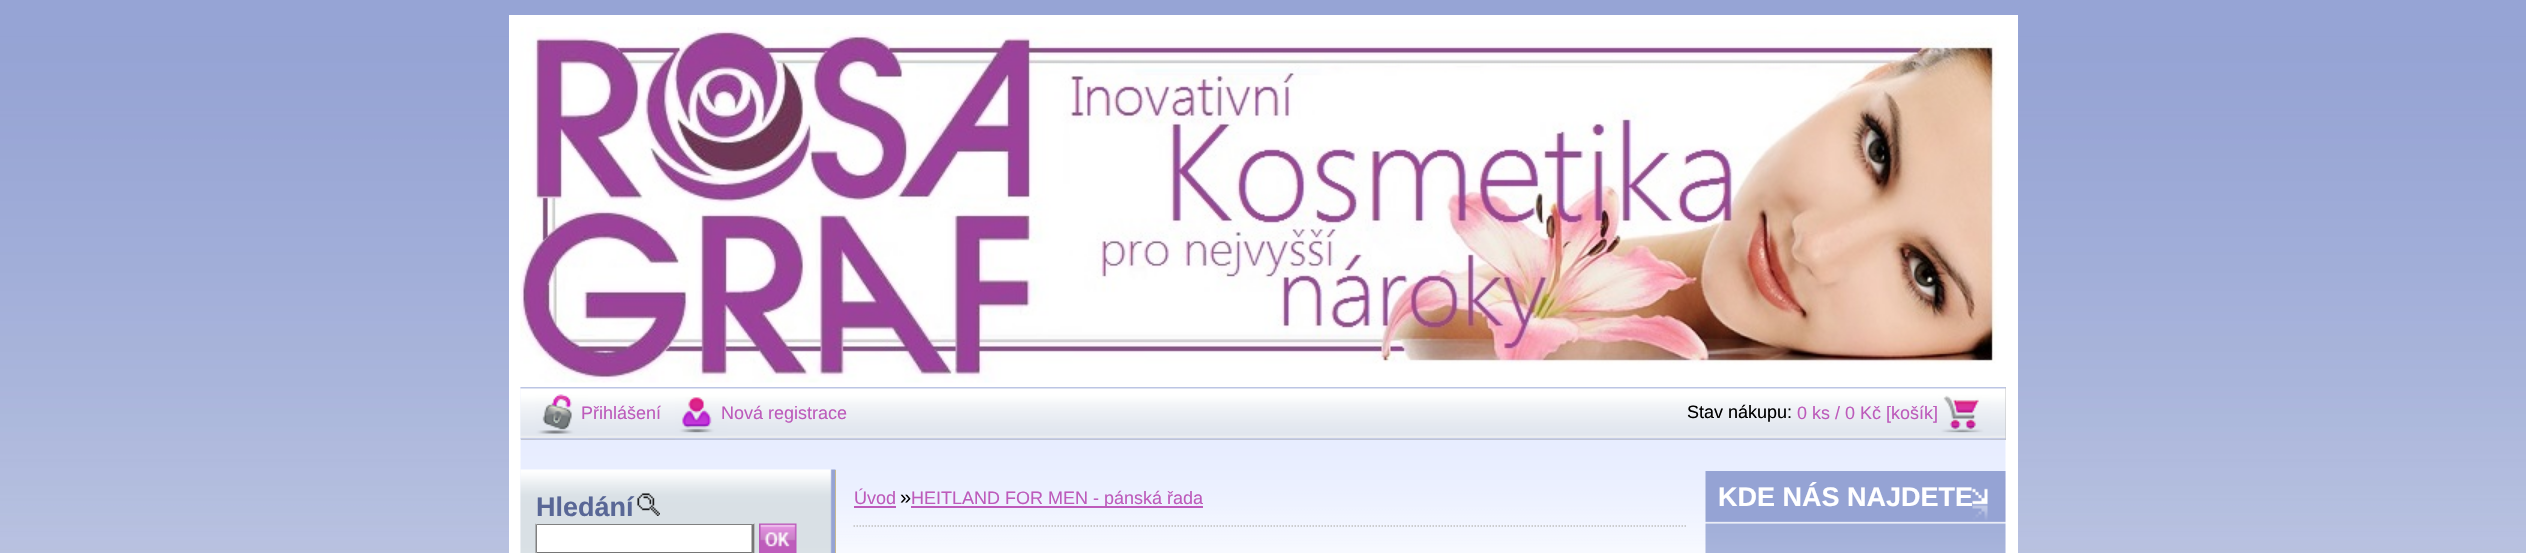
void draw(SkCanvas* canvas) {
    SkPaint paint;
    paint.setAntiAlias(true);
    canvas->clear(0xFFFFFFFF);
    canvas->drawImageRect(SkImages::DeferredFromEncodedData(SkData::MakeFromFileName("img1.png")), SkRect::MakeXYWH(0, 0, 2526, 553), SkSamplingOptions());
    paint.setColor(0xFFFFFFFF);
    canvas->drawRect(SkRect::MakeXYWH(509, 15, 1509, 538), paint);
    canvas->drawImageRect(SkImages::DeferredFromEncodedData(SkData::MakeFromFileName("img2.png")), SkRect::MakeXYWH(520, 27, 1479, 356), SkSamplingOptions());
    canvas->drawImageRect(SkImages::DeferredFromEncodedData(SkData::MakeFromFileName("img7.png")), SkRect::MakeXYWH(520, 387, 1486, 166), SkSamplingOptions());
    paint.setColor(0xFFC0C0C0);
    canvas->drawRect(SkRect::MakeXYWH(521, 387, 1485, 53), paint);
    canvas->drawImageRect(SkImages::DeferredFromEncodedData(SkData::MakeFromFileName("img3.png")), SkRect::MakeXYWH(520, 387, 1486, 53), SkSamplingOptions());
    canvas->drawImageRect(SkImages::DeferredFromEncodedData(SkData::MakeFromFileName("img4.png")), SkRect::MakeXYWH(535, 394, 53, 46), SkSamplingOptions());
    SkFont font1(fontMgr->matchFamilyStyle("Liberation Sans", SkFontStyle::Normal()), 18);
    font1.setSubpixel(true);
    paint.setColor(0xFFBD5BBB);
    canvas->drawString("Přihlášení", 581, 419, font1, paint);
    canvas->drawImageRect(SkImages::DeferredFromEncodedData(SkData::MakeFromFileName("img5.png")), SkRect::MakeXYWH(675, 397, 53, 43), SkSamplingOptions());
    canvas->drawString("Nová registrace", 721, 419, font1, paint);
    canvas->drawImageRect(SkImages::DeferredFromEncodedData(SkData::MakeFromFileName("img6.png")), SkRect::MakeXYWH(1938, 395, 53, 45), SkSamplingOptions());
    paint.setColor(0xFF000000);
    canvas->drawString("Stav nákupu:", 1687, 418, font1, paint);
    paint.setColor(0xFFBD5BBB);
    canvas->drawString("0 ks / 0 Kč [košík]", 1797, 419, font1, paint);
    paint.setColor(0xFFF9CF4A);
    canvas->drawRect(SkRect::MakeXYWH(835, 470, 1, 83), paint);
    canvas->drawImageRect(SkImages::DeferredFromEncodedData(SkData::MakeFromFileName("img8.png")), SkRect::MakeXYWH(520, 469, 316, 84), SkSamplingOptions());
    SkFont font2(fontMgr->matchFamilyStyle("Liberation Sans", SkFontStyle::Bold()), 27);
    font2.setSubpixel(true);
    paint.setColor(0xFF596796);
    canvas->drawString("Hledání", 536, 516, font2, paint);
    canvas->drawImageRect(SkImages::DeferredFromEncodedData(SkData::MakeFromFileName("img9.png")), SkRect::MakeXYWH(637, 493, 23, 23), SkSamplingOptions());
    paint.setColor(0xFFFFFFFF);
    canvas->drawRect(SkRect::MakeXYWH(536, 524, 219, 29), paint);
    paint.setColor(0xFF808080);
    canvas->drawPath(SkPathBuilder().moveTo(536, 524).lineTo(754, 524).lineTo(752, 525).lineTo(537, 525).close().detach(), paint);
    paint.setColor(0xFF767676);
    canvas->drawPath(SkPathBuilder().moveTo(754.5f, 523.5f).lineTo(754.5f, 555).lineTo(751.5f, 552).lineTo(751.5f, 525).close().detach(), paint);
    canvas->drawPath(SkPathBuilder().moveTo(754, 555).lineTo(536, 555).lineTo(537, 552).lineTo(752, 552).close().detach(), paint);
    paint.setColor(0xFF808080);
    canvas->drawPath(SkPathBuilder().moveTo(535.5f, 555).lineTo(535.5f, 523.5f).lineTo(537, 525).lineTo(537, 552).close().detach(), paint);
    canvas->drawImageRect(SkImages::DeferredFromEncodedData(SkData::MakeFromFileName("img10.png")), SkRect::MakeXYWH(759, 523, 38, 30), SkSamplingOptions());
    paint.setStyle(SkPaint::kStroke_Style);
    paint.setStrokeWidth(1.5f);
    paint.setColor(0xFFC0C0C0);
    paint.setPathEffect(SkDashPathEffect::Make({{1.5f, 1.5f}}, 0));
    canvas->drawPath(SkPathBuilder().moveTo(853.5f, 526).lineTo(1687.5f, 526).detach(), paint);
    paint.setPathEffect(nullptr);
    paint.setStyle(SkPaint::kFill_Style);
    paint.setColor(0xFFBD5BBB);
    canvas->drawString("Úvod", 854, 504, font1, paint);
    canvas->drawRect(SkRect::MakeXYWH(854, 506, 42, 2), paint);
    SkFont font3(fontMgr->matchFamilyStyle("Liberation Sans", SkFontStyle::Normal()), 20);
    font3.setSubpixel(true);
    paint.setColor(0xFF000000);
    canvas->drawString("»", 900, 504, font3, paint);
    paint.setColor(0xFFBD5BBB);
    canvas->drawRect(SkRect::MakeXYWH(911, 506, 292, 2), paint);
    canvas->drawString("HEITLAND FOR MEN - pánská řada", 911, 504, font1, paint);
    canvas->drawImageRect(SkImages::DeferredFromEncodedData(SkData::MakeFromFileName("img11.png")), SkRect::MakeXYWH(1705, 471, 301, 82), SkSamplingOptions());
    paint.setColor(0xFFFFFFFF);
    canvas->drawString("KDE NÁS NAJDETE", 1718, 506, font2, paint);
}
